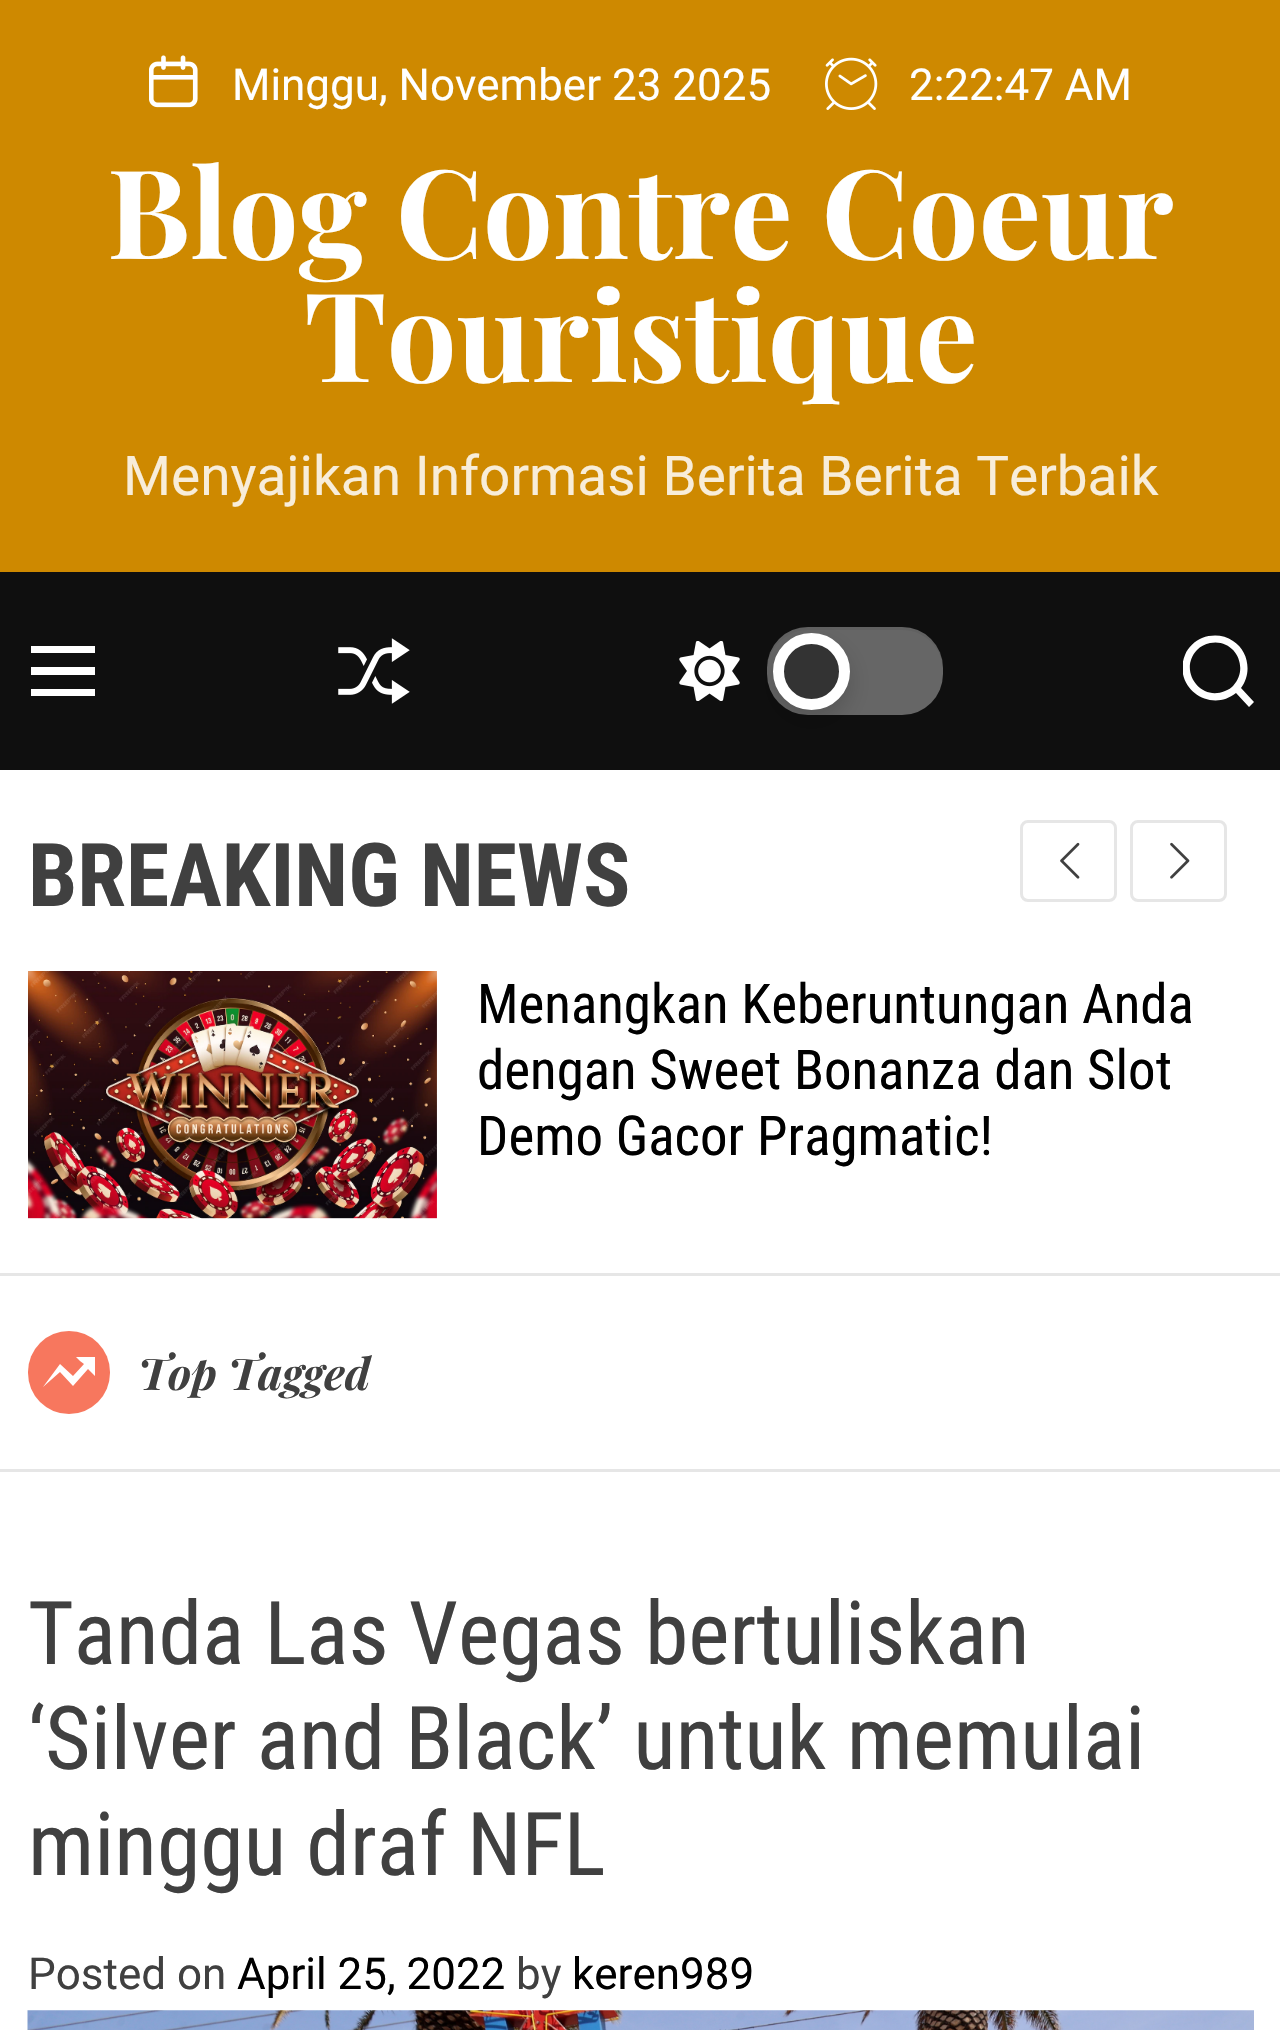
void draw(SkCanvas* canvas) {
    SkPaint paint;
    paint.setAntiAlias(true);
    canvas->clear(0xFFFFFFFF);
    paint.setColor(0xFFCE8900);
    canvas->drawRect(SkRect::MakeXYWH(0, 0, 1280, 572), paint);
    canvas->drawImageRect(SkImages::DeferredFromEncodedData(SkData::MakeFromFileName("img1.png")), SkRect::MakeXYWH(149, 55, 49, 53), SkSamplingOptions());
    SkFont font1(fontMgr->matchFamilyStyle("Roboto", SkFontStyle::Normal()), 44);
    font1.setSubpixel(true);
    paint.setColor(0xFFFFFFFF);
    canvas->drawString("Minggu, November 23 2025", 232, 100, font1, paint);
    canvas->drawImageRect(SkImages::DeferredFromEncodedData(SkData::MakeFromFileName("img2.png")), SkRect::MakeXYWH(825, 57, 53, 53), SkSamplingOptions());
    canvas->drawString("2:22:47 AM", 909, 100, font1, paint);
    SkFont font2(fontMgr->matchFamilyStyle("Playfair Display", SkFontStyle::Bold()), 123.75f);
    font2.setSubpixel(true);
    canvas->drawString("Blog Contre Coeur", 107, 259, font2, paint);
    canvas->drawString("Touristique", 304, 382, font2, paint);
    SkFont font3(fontMgr->matchFamilyStyle("Roboto", SkFontStyle::Normal()), 55);
    font3.setSubpixel(true);
    paint.setColor(0xFFF8EDD9);
    canvas->drawString("Menyajikan Informasi Berita Berita Terbaik", 123, 495, font3, paint);
    paint.setColor(0xFF0F0F0F);
    canvas->drawRect(SkRect::MakeXYWH(0, 572, 1280, 198), paint);
    paint.setColor(0xFFFFFFFF);
    canvas->drawPath(SkPathBuilder().moveTo(31, 646).lineTo(31, 653).lineTo(95, 653).lineTo(95, 646).close().moveTo(31, 675).lineTo(95, 675).lineTo(95, 667).lineTo(31, 667).close().moveTo(31, 696).lineTo(95, 696).lineTo(95, 689).lineTo(31, 689).close().detach(), paint);
    canvas->drawImageRect(SkImages::DeferredFromEncodedData(SkData::MakeFromFileName("img3.png")), SkRect::MakeXYWH(338, 638, 72, 66), SkSamplingOptions());
    canvas->drawImageRect(SkImages::DeferredFromEncodedData(SkData::MakeFromFileName("img4.png")), SkRect::MakeXYWH(679, 641, 61, 60), SkSamplingOptions());
    paint.setColor(0xFF666666);
    canvas->drawRoundRect(SkRect::MakeXYWH(767, 627, 176, 88), 41, 41, paint);
    paint.setColor(0x0D000000);
    canvas->drawPath(SkPathBuilder().moveTo(808, 630).lineTo(902, 630).cubicTo(925, 630, 943, 648, 943, 671).lineTo(943, 668).cubicTo(943, 645, 925, 627, 902, 627).lineTo(808, 627).cubicTo(785, 627, 767, 645, 767, 668).lineTo(767, 671).cubicTo(767, 648, 786, 630, 808, 630).close().detach(), paint);
    paint.setColor(0x29000000);
    paint.setMaskFilter(SkMaskFilter::MakeBlur(kNormal_SkBlurStyle, 11));
    canvas->drawRoundRect(SkRect::MakeXYWH(773, 644, 77, 77), 38.5f, 38.5f, paint);
    paint.setMaskFilter(nullptr);
    paint.setColor(0xFF333333);
    canvas->drawCircle(811.5f, 671.5f, 33, paint);
    paint.setStyle(SkPaint::kStroke_Style);
    paint.setStrokeWidth(11);
    paint.setColor(0xFFFFFFFF);
    canvas->drawCircle(811.5f, 671.5f, 33, paint);
    canvas->save();
    canvas->clipRect(SkRect::MakeXYWH(1183, 635, 71, 72));
    paint.setStyle(SkPaint::kFill_Style);
    canvas->drawPath(SkPathBuilder().moveTo(1241, 688).lineTo(1254, 702).lineTo(1249, 707).lineTo(1236, 693).cubicTo(1210, 714, 1172, 687, 1185, 655).cubicTo(1188, 647, 1195, 641, 1202, 638).cubicTo(1213, 634, 1224, 635, 1233, 641).cubicTo(1249, 651, 1252, 674, 1241, 688).close().moveTo(1233, 686).cubicTo(1250, 668, 1235, 638, 1210, 643).cubicTo(1205, 644, 1201, 646, 1197, 650).cubicTo(1178, 670, 1200, 702, 1225, 691).cubicTo(1228, 690, 1231, 688, 1233, 686).close().detach(), paint);
    canvas->restore();
    paint.setColor(0xFFE6E6E6);
    canvas->drawRect(SkRect::MakeXYWH(0, 1273, 1280, 3), paint);
    SkFont font4(fontMgr->matchFamilyStyle("Roboto Condensed", SkFontStyle::Bold()), 88);
    font4.setSubpixel(true);
    paint.setColor(0xFF404040);
    canvas->drawString("BREAKING NEWS", 28, 906, font4, paint);
    paint.setStyle(SkPaint::kStroke_Style);
    paint.setStrokeWidth(3);
    paint.setColor(0xFFE6E6E6);
    canvas->drawRoundRect(SkRect::MakeXYWH(1021.5f, 821.5f, 94, 79), 6.5f, 6.5f, paint);
    canvas->drawImageRect(SkImages::DeferredFromEncodedData(SkData::MakeFromFileName("img5.png")), SkRect::MakeXYWH(1060, 842, 20, 37), SkSamplingOptions());
    canvas->drawRoundRect(SkRect::MakeXYWH(1131.5f, 821.5f, 94, 79), 6.5f, 6.5f, paint);
    canvas->drawImageRect(SkImages::DeferredFromEncodedData(SkData::MakeFromFileName("img6.png")), SkRect::MakeXYWH(1170, 842, 20, 37), SkSamplingOptions());
    canvas->drawImageRect(SkImages::DeferredFromEncodedData(SkData::MakeFromFileName("img7.png")), SkRect::MakeXYWH(28, 971, 409, 248), SkSamplingOptions());
    SkFont font5(fontMgr->matchFamilyStyle("Roboto Condensed", SkFontStyle::Normal()), 55);
    font5.setSubpixel(true);
    paint.setStyle(SkPaint::kFill_Style);
    paint.setColor(0xFF000000);
    canvas->drawString("Menangkan Keberuntungan Anda", 477, 1023, font5, paint);
    canvas->drawString("dengan Sweet Bonanza dan Slot", 477, 1089, font5, paint);
    canvas->drawString("Demo Gacor Pragmatic!", 477, 1155, font5, paint);
    paint.setColor(0xFFE6E6E6);
    canvas->drawRect(SkRect::MakeXYWH(0, 1469, 1280, 3), paint);
    paint.setColor(0xFFF7775E);
    canvas->drawRoundRect(SkRect::MakeXYWH(28, 1331, 82, 83), 41, 41, paint);
    paint.setColor(0xFFFFFFFF);
    canvas->drawPath(SkPathBuilder().moveTo(80, 1361).lineTo(84, 1364).lineTo(73, 1376).lineTo(60, 1364).lineTo(43, 1387).lineTo(60, 1372).lineTo(73, 1386).lineTo(88, 1369).lineTo(95, 1376).lineTo(95, 1357).lineTo(76, 1357).close().detach(), paint);
    SkFont font6(fontMgr->matchFamilyStyle("Playfair Display", SkFontStyle::BoldItalic()), 44);
    font6.setSubpixel(true);
    paint.setColor(0xFF404040);
    canvas->drawString("Top Tagged", 138, 1390, font6, paint);
    SkFont font7(fontMgr->matchFamilyStyle("Roboto Condensed", SkFontStyle::Normal()), 88);
    font7.setSubpixel(true);
    canvas->drawString("Tanda Las Vegas bertuliskan", 28, 1664, font7, paint);
    canvas->drawString("‘Silver and Black’ untuk memulai", 28, 1769, font7, paint);
    canvas->drawString("minggu draf NFL", 28, 1875, font7, paint);
    canvas->drawString("Posted on", 28, 1989, font1, paint);
    paint.setColor(0xFF000000);
    canvas->drawString("April 25, 2022", 237, 1989, font1, paint);
    paint.setColor(0xFF404040);
    canvas->drawString("by", 516, 1989, font1, paint);
    paint.setColor(0xFF000000);
    canvas->drawString("keren989", 572, 1989, font1, paint);
    canvas->drawImageRect(SkImages::DeferredFromEncodedData(SkData::MakeFromFileName("img8.png")), SkRect::MakeXYWH(27, 2010, 1227, 20), SkSamplingOptions());
}
